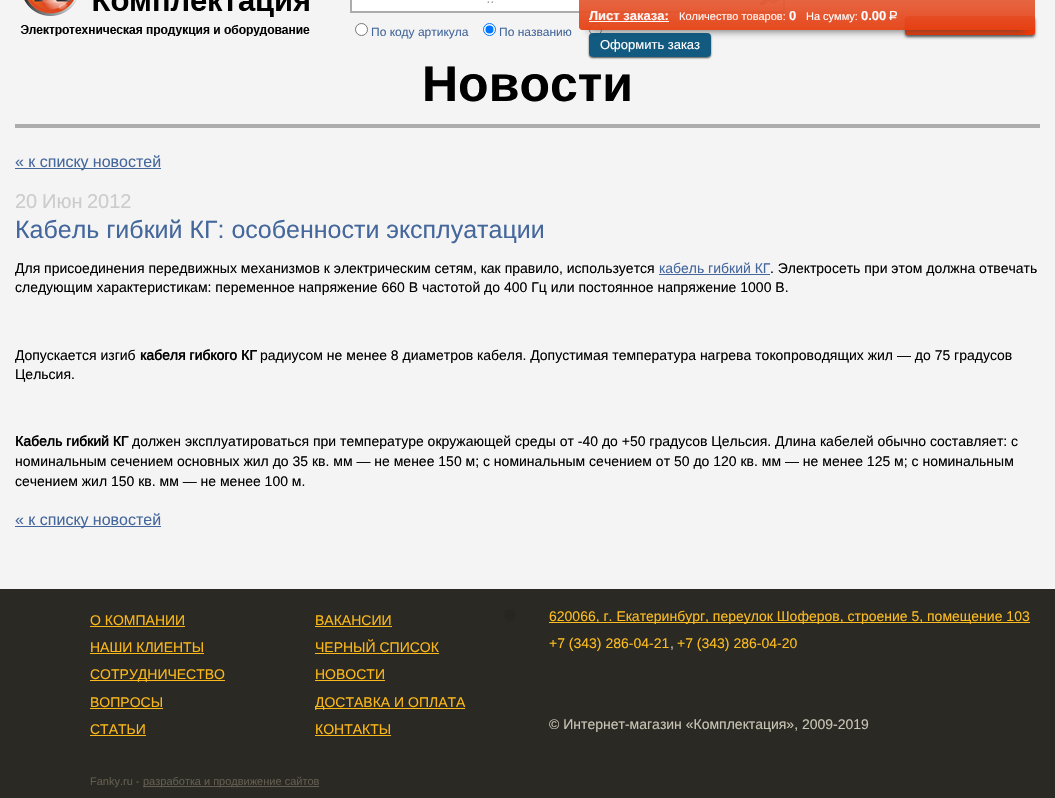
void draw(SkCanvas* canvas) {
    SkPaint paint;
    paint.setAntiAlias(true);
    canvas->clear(0xFFF5F4F4);
    canvas->drawImageRect(SkImages::DeferredFromEncodedData(SkData::MakeFromFileName("img1.png")), SkRect::MakeXYWH(20, 0, 290, 36), SkSamplingOptions());
    paint.setColor(0xFFFFFFFF);
    canvas->drawRect(SkRect::MakeXYWH(352, 0, 431, 11), paint);
    paint.setColor(0xFFACACAC);
    canvas->drawRect(SkRect::MakeXYWH(350, 11, 406, 2), paint);
    canvas->drawRect(SkRect::MakeXYWH(350, 0, 2, 13), paint);
    SkFont font1(fontMgr->matchFamilyStyle("Liberation Sans", SkFontStyle::Italic()), 14);
    font1.setSubpixel(true);
    paint.setColor(0xFF9C9C9C);
    canvas->drawString("..", 487, 3, font1, paint);
    canvas->drawImageRect(SkImages::DeferredFromEncodedData(SkData::MakeFromFileName("img2.png")), SkRect::MakeXYWH(759, 0, 20, 6), SkSamplingOptions());
    paint.setColor(0xFFACACAC);
    canvas->drawRect(SkRect::MakeXYWH(783, 0, 2, 13), paint);
    canvas->drawRect(SkRect::MakeXYWH(756, 11, 29, 2), paint);
    paint.setColor(0xFFFFFFFF);
    canvas->drawCircle(361.5f, 29.5f, 6, paint);
    paint.setStyle(SkPaint::kStroke_Style);
    paint.setStrokeWidth(1);
    paint.setColor(0xFF767676);
    canvas->drawCircle(361.5f, 29.5f, 6, paint);
    SkFont font2(fontMgr->matchFamilyStyle("Arimo", SkFontStyle::Normal()), 12);
    font2.setSubpixel(true);
    paint.setStyle(SkPaint::kFill_Style);
    paint.setColor(0xFF44679C);
    canvas->drawString("По коду артикула", 371, 36, font2, paint);
    paint.setColor(0xFFFFFFFF);
    canvas->drawCircle(489.5f, 29.5f, 6, paint);
    paint.setStyle(SkPaint::kStroke_Style);
    paint.setColor(0xFF0075FF);
    canvas->drawCircle(489.5f, 29.5f, 6, paint);
    paint.setStyle(SkPaint::kFill_Style);
    canvas->drawCircle(489.5f, 29.5f, 4, paint);
    paint.setColor(0xFF44679C);
    canvas->drawString("По названию", 499, 36, font2, paint);
    paint.setColor(0xFFFFFFFF);
    canvas->drawCircle(595.5f, 29.5f, 6, paint);
    paint.setStyle(SkPaint::kStroke_Style);
    paint.setColor(0xFF767676);
    canvas->drawCircle(595.5f, 29.5f, 6, paint);
    paint.setStyle(SkPaint::kFill_Style);
    paint.setColor(0xFF555555);
    paint.setMaskFilter(SkMaskFilter::MakeBlur(kNormal_SkBlurStyle, 1.5f));
    canvas->drawRoundRect(SkRect::MakeXYWH(905, 18, 130, 19), 3, 3, paint);
    paint.setMaskFilter(nullptr);
    paint.setColor(0xFFEF3805);
    canvas->drawRoundRect(SkRect::MakeXYWH(905, 16, 130, 19), 3, 3, paint);
    canvas->save();
    canvas->clipRect(SkRect::MakeXYWH(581, 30, 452, 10));
    paint.setColor(0xF2444444);
    paint.setMaskFilter(SkMaskFilter::MakeBlur(kNormal_SkBlurStyle, 5));
    canvas->drawRect(SkRect::MakeXYWH(589, 20, 436, 10), paint);
    paint.setMaskFilter(nullptr);
    canvas->restore();
    {
        const SkColor colors[] = {0xF2E55D38, 0xF2E54012};
        const float stops[] = {0, 1};
        const SkPoint ends[] = {{807, 0}, {807, 30}};
        paint.setShader(SkGradientShader::MakeLinear(ends, colors, stops, 2, SkTileMode::kClamp));
        paint.setAlpha(255);
    }
    canvas->drawPath(SkPathBuilder().moveTo(579, 0).lineTo(1035, 0).lineTo(1035, 27).cubicTo(1035, 28.5f, 1033.5f, 30, 1032, 30).lineTo(582, 30).cubicTo(580.5f, 30, 579, 28.5f, 579, 27).close().detach(), paint);
    SkFont font3(fontMgr->matchFamilyStyle("Liberation Sans", SkFontStyle::Bold()), 13);
    font3.setSubpixel(true);
    paint.setShader(nullptr);
    paint.setColor(0xFFFEF7F5);
    canvas->drawString("Лист заказа:", 589, 20, font3, paint);
    paint.setColor(0xFFFFFEFE);
    canvas->drawRect(SkRect::MakeXYWH(589, 21, 80, 1), paint);
    SkFont font4(fontMgr->matchFamilyStyle("Liberation Sans", SkFontStyle::Normal()), 11);
    font4.setSubpixel(true);
    paint.setColor(0xFFFEF7F5);
    canvas->drawString("Количество товаров:", 679, 20, font4, paint);
    paint.setColor(0xFFFFFEFE);
    canvas->drawString("0", 789, 20, font3, paint);
    canvas->drawString("На сумму:", 806, 20, font4, paint);
    canvas->drawString("0.00", 861, 20, font3, paint);
    SkFont font5(fontMgr->matchFamilyStyle("Liberation Sans", SkFontStyle::Normal()), 13);
    font5.setSubpixel(true);
    canvas->drawString("Р", 889, 20, font5, paint);
    canvas->drawString("–", 889, 21, font5, paint);
    canvas->save();
    canvas->clipPath(SkPathBuilder(SkPathFillType::kEvenOdd).moveTo(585, 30).lineTo(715, 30).lineTo(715, 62).lineTo(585, 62).close().moveTo(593, 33).lineTo(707, 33).cubicTo(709, 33, 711, 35, 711, 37).lineTo(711, 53).cubicTo(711, 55, 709, 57, 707, 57).lineTo(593, 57).cubicTo(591, 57, 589, 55, 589, 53).lineTo(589, 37).cubicTo(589, 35, 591, 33, 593, 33).close().detach(), true);
    paint.setColor(0xF2444444);
    paint.setMaskFilter(SkMaskFilter::MakeBlur(kNormal_SkBlurStyle, 1));
    canvas->drawRoundRect(SkRect::MakeXYWH(589, 34, 122, 24), 4, 4, paint);
    paint.setMaskFilter(nullptr);
    canvas->restore();
    paint.setColor(0xF2065179);
    canvas->drawRoundRect(SkRect::MakeXYWH(589, 33, 122, 24), 4, 4, paint);
    paint.setColor(0xFFFFFEFE);
    canvas->drawString("Оформить заказ", 600, 49, font5, paint);
    paint.setColor(0xFFACACAC);
    canvas->drawRect(SkRect::MakeXYWH(15, 124, 1025, 4), paint);
    SkFont font6(fontMgr->matchFamilyStyle("Liberation Sans", SkFontStyle::Bold()), 50);
    font6.setSubpixel(true);
    paint.setColor(0xFF000000);
    canvas->drawString("Новости", 422, 101, font6, paint);
    paint.setColor(0xFF44679C);
    canvas->drawRect(SkRect::MakeXYWH(15, 168, 146, 1), paint);
    SkFont font7(fontMgr->matchFamilyStyle("Arimo", SkFontStyle::Normal()), 16);
    font7.setSubpixel(true);
    canvas->drawString("« к списку новостей", 15, 167, font7, paint);
    SkFont font8(fontMgr->matchFamilyStyle("Arimo", SkFontStyle::Normal()), 20);
    font8.setSubpixel(true);
    paint.setColor(0xFFCCCCCC);
    canvas->drawString("20", 15, 208, font8, paint);
    canvas->drawString("Июн", 42, 208, font8, paint);
    canvas->drawString("2012", 87, 208, font8, paint);
    SkFont font9(fontMgr->matchFamilyStyle("Arimo", SkFontStyle::Normal()), 25);
    font9.setSubpixel(true);
    paint.setColor(0xFF44679C);
    canvas->drawString("Кабель гибкий КГ: особенности эксплуатации", 15, 238, font9, paint);
    SkFont font10(fontMgr->matchFamilyStyle("Arimo", SkFontStyle::Normal()), 14);
    font10.setSubpixel(true);
    paint.setColor(0xFF000000);
    canvas->drawString("Для присоединения передвижных механизмов к электрическим сетям, как правило, используется", 15, 273, font10, paint);
    paint.setColor(0xFF44679C);
    canvas->drawString("кабель гибкий КГ", 659, 273, font10, paint);
    canvas->drawRect(SkRect::MakeXYWH(659, 274, 111, 1), paint);
    paint.setColor(0xFF000000);
    canvas->drawString(". Электросеть при этом должна отвечать", 770, 273, font10, paint);
    canvas->drawString("следующим характеристикам: переменное напряжение 660 В частотой до 400 Гц или постоянное напряжение 1000 В.", 15, 292, font10, paint);
    canvas->drawString("Допускается изгиб", 15, 360, font10, paint);
    SkFont font11(fontMgr->matchFamilyStyle("Arimo", SkFontStyle::Bold()), 14);
    font11.setSubpixel(true);
    canvas->drawString("кабеля гибкого КГ", 140, 360, font11, paint);
    canvas->drawString("радиусом не менее 8 диаметров кабеля. Допустимая температура нагрева токопроводящих жил — до 75 градусов", 260, 360, font10, paint);
    canvas->drawString("Цельсия.", 15, 379, font10, paint);
    canvas->drawString("Кабель гибкий КГ", 15, 446, font11, paint);
    canvas->drawString("должен эксплуатироваться при температуре окружающей среды от -40 до +50 градусов Цельсия. Длина кабелей обычно составляет: с", 132, 446, font10, paint);
    canvas->drawString("номинальным сечением основных жил до 35 кв. мм — не менее 150 м; с номинальным сечением от 50 до 120 кв. мм — не менее 125 м; с номинальным", 15, 466, font10, paint);
    canvas->drawString("сечением жил 150 кв. мм — не менее 100 м.", 15, 486, font10, paint);
    paint.setColor(0xFF44679C);
    canvas->drawRect(SkRect::MakeXYWH(15, 526, 146, 1), paint);
    canvas->drawString("« к списку новостей", 15, 525, font7, paint);
    paint.setColor(0xFF2B2923);
    canvas->drawRect(SkRect::MakeXYWH(0, 589, 1055, 209), paint);
    paint.setColor(0xFFFBB81A);
    canvas->drawString("О КОМПАНИИ", 90, 625, font10, paint);
    canvas->drawRect(SkRect::MakeXYWH(90, 626, 95, 1), paint);
    canvas->drawString("НАШИ КЛИЕНТЫ", 90, 652, font10, paint);
    canvas->drawRect(SkRect::MakeXYWH(90, 653, 114, 1), paint);
    canvas->drawRect(SkRect::MakeXYWH(90, 680, 135, 1), paint);
    canvas->drawString("СОТРУДНИЧЕСТВО", 90, 679, font10, paint);
    canvas->drawString("ВОПРОСЫ", 90, 707, font10, paint);
    canvas->drawRect(SkRect::MakeXYWH(90, 708, 73, 1), paint);
    canvas->drawString("СТАТЬИ", 90, 734, font10, paint);
    canvas->drawRect(SkRect::MakeXYWH(90, 735, 56, 1), paint);
    canvas->drawString("ВАКАНСИИ", 315, 625, font10, paint);
    canvas->drawRect(SkRect::MakeXYWH(315, 626, 77, 1), paint);
    canvas->drawString("ЧЕРНЫЙ СПИСОК", 315, 652, font10, paint);
    canvas->drawRect(SkRect::MakeXYWH(315, 653, 124, 1), paint);
    canvas->drawString("НОВОСТИ", 315, 679, font10, paint);
    canvas->drawRect(SkRect::MakeXYWH(315, 680, 70, 1), paint);
    canvas->drawRect(SkRect::MakeXYWH(315, 708, 150, 1), paint);
    canvas->drawString("ДОСТАВКА И ОПЛАТА", 315, 707, font10, paint);
    canvas->drawString("КОНТАКТЫ", 315, 734, font10, paint);
    canvas->drawRect(SkRect::MakeXYWH(315, 735, 76, 1), paint);
    paint.setColor(0xFF282621);
    canvas->drawRoundRect(SkRect::MakeXYWH(504, 609, 12, 12), 5, 5, paint);
    paint.setColor(0xFFFBBC22);
    canvas->drawRect(SkRect::MakeXYWH(549, 622, 481, 1), paint);
    canvas->drawString("620066, г. Екатеринбург, переулок Шоферов, строение 5, помещение 103", 549, 621, font10, paint);
    canvas->drawString("+7 (343) 286-04-21", 549, 648, font10, paint);
    paint.setColor(0xFFC8C4B5);
    canvas->drawString(",", 670, 648, font10, paint);
    paint.setColor(0xFFFBBC22);
    canvas->drawString("+7 (343) 286-04-20", 677, 648, font10, paint);
    paint.setColor(0xFFC8C4B5);
    canvas->drawString("© Интернет-магазин «Комплектация», 2009-2019", 549, 729, font10, paint);
    SkFont font12(fontMgr->matchFamilyStyle("Arimo", SkFontStyle::Normal()), 11);
    font12.setSubpixel(true);
    paint.setColor(0xFF625D50);
    canvas->drawString("Fanky.ru -", 90, 785, font12, paint);
    canvas->drawRect(SkRect::MakeXYWH(143, 786, 176, 1), paint);
    canvas->drawString("разработка и продвижение сайтов", 143, 785, font12, paint);
}
